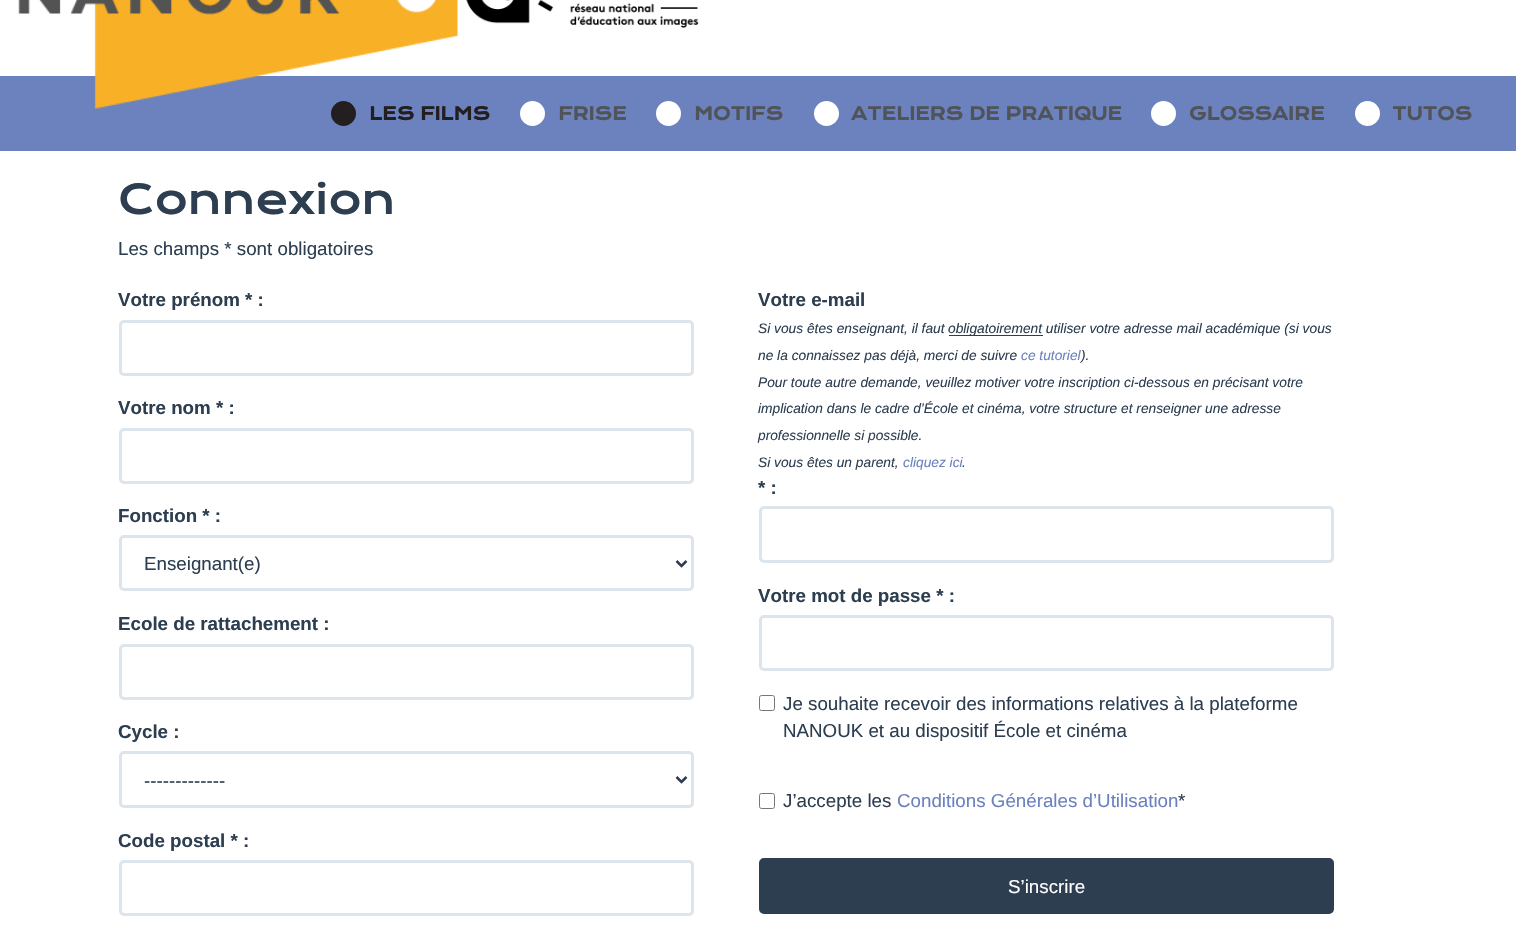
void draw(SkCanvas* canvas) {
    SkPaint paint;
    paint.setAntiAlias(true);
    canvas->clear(0xFFFFFFFF);
    paint.setColor(0xFF6B82BF);
    canvas->drawRect(SkRect::MakeXYWH(0, 76, 1516, 75), paint);
    canvas->drawImageRect(SkImages::DeferredFromEncodedData(SkData::MakeFromFileName("img1.png")), SkRect::MakeXYWH(18, 0, 440, 109), SkSamplingOptions());
    canvas->drawImageRect(SkImages::DeferredFromEncodedData(SkData::MakeFromFileName("img2.png")), SkRect::MakeXYWH(466, 0, 233, 28), SkSamplingOptions());
    paint.setColor(0xFF231F20);
    canvas->drawCircle(343.5f, 113.5f, 12.5f, paint);
    SkFont font1(fontMgr->matchFamilyStyle("Krona One", SkFontStyle::Bold()), 17.5f);
    font1.setSubpixel(true);
    canvas->drawString("LES FILMS", 369, 120, font1, paint);
    paint.setColor(0xFFFFFFFF);
    canvas->drawCircle(532.5f, 113.5f, 12.5f, paint);
    paint.setColor(0xFF505459);
    canvas->drawString("FRISE", 558, 120, font1, paint);
    paint.setColor(0xFFFFFFFF);
    canvas->drawCircle(668.5f, 113.5f, 12.5f, paint);
    paint.setColor(0xFF505459);
    canvas->drawString("MOTIFS", 694, 120, font1, paint);
    paint.setColor(0xFFFFFFFF);
    canvas->drawCircle(826.5f, 113.5f, 12.5f, paint);
    paint.setColor(0xFF505459);
    canvas->drawString("ATELIERS DE PRATIQUE", 851, 120, font1, paint);
    paint.setColor(0xFFFFFFFF);
    canvas->drawCircle(1163.5f, 113.5f, 12.5f, paint);
    paint.setColor(0xFF505459);
    canvas->drawString("GLOSSAIRE", 1189, 120, font1, paint);
    paint.setColor(0xFFFFFFFF);
    canvas->drawCircle(1367.5f, 113.5f, 12.5f, paint);
    paint.setColor(0xFF505459);
    canvas->drawString("TUTOS", 1392, 120, font1, paint);
    SkFont font2(fontMgr->matchFamilyStyle("Krona One", SkFontStyle::Normal()), 40);
    font2.setSubpixel(true);
    paint.setColor(0xFF2C3E50);
    canvas->drawString("Connexion", 118, 214, font2, paint);
    SkFont font3(fontMgr->matchFamilyStyle("Liberation Sans", SkFontStyle::Normal()), 18.75f);
    font3.setSubpixel(true);
    canvas->drawString("Les champs * sont obligatoires", 118, 255, font3, paint);
    SkFont font4(fontMgr->matchFamilyStyle("Liberation Sans", SkFontStyle::Bold()), 18.75f);
    font4.setSubpixel(true);
    canvas->drawString("Votre prénom * :", 118, 306, font4, paint);
    paint.setStyle(SkPaint::kStroke_Style);
    paint.setStrokeWidth(3);
    paint.setColor(0xFFDCE4EC);
    canvas->drawRoundRect(SkRect::MakeXYWH(120.5f, 321.5f, 572, 53), 3.5f, 3.5f, paint);
    paint.setStyle(SkPaint::kFill_Style);
    paint.setColor(0xFF2C3E50);
    canvas->drawString("Votre nom * :", 118, 414, font4, paint);
    paint.setStyle(SkPaint::kStroke_Style);
    paint.setColor(0xFFDCE4EC);
    canvas->drawRoundRect(SkRect::MakeXYWH(120.5f, 429.5f, 572, 53), 3.5f, 3.5f, paint);
    paint.setStyle(SkPaint::kFill_Style);
    paint.setColor(0xFF2C3E50);
    canvas->drawString("Fonction * :", 118, 522, font4, paint);
    paint.setStyle(SkPaint::kStroke_Style);
    paint.setColor(0xFFDCE4EC);
    canvas->drawRoundRect(SkRect::MakeXYWH(120.5f, 536.5f, 572, 53), 3.5f, 3.5f, paint);
    paint.setStrokeWidth(2.5f);
    paint.setColor(0xFF2C3E50);
    canvas->drawPath(SkPathBuilder().moveTo(676.5f, 561).lineTo(681.5f, 566).lineTo(686.5f, 561).detach(), paint);
    paint.setStyle(SkPaint::kFill_Style);
    canvas->drawString("Enseignant(e)", 144, 570, font3, paint);
    canvas->drawString("Ecole de rattachement :", 118, 630, font4, paint);
    paint.setStyle(SkPaint::kStroke_Style);
    paint.setStrokeWidth(3);
    paint.setColor(0xFFDCE4EC);
    canvas->drawRoundRect(SkRect::MakeXYWH(120.5f, 645.5f, 572, 53), 3.5f, 3.5f, paint);
    paint.setStyle(SkPaint::kFill_Style);
    paint.setColor(0xFF2C3E50);
    canvas->drawString("Cycle :", 118, 738, font4, paint);
    paint.setStyle(SkPaint::kStroke_Style);
    paint.setColor(0xFFDCE4EC);
    canvas->drawRoundRect(SkRect::MakeXYWH(120.5f, 752.5f, 572, 54), 3.5f, 3.5f, paint);
    paint.setStrokeWidth(2.5f);
    paint.setColor(0xFF2C3E50);
    canvas->drawPath(SkPathBuilder().moveTo(676.5f, 777).lineTo(681.5f, 782).lineTo(686.5f, 777).detach(), paint);
    paint.setStyle(SkPaint::kFill_Style);
    canvas->drawString("-------------", 144, 787, font3, paint);
    canvas->drawString("Code postal * :", 118, 847, font4, paint);
    paint.setStyle(SkPaint::kStroke_Style);
    paint.setStrokeWidth(3);
    paint.setColor(0xFFDCE4EC);
    canvas->drawRoundRect(SkRect::MakeXYWH(120.5f, 861.5f, 572, 53), 3.5f, 3.5f, paint);
    paint.setStyle(SkPaint::kFill_Style);
    paint.setColor(0xFF2C3E50);
    canvas->drawString("Votre e-mail", 758, 306, font4, paint);
    SkFont font5(fontMgr->matchFamilyStyle("Liberation Sans", SkFontStyle::Italic()), 13.75f);
    font5.setSubpixel(true);
    canvas->drawString("Si vous êtes enseignant, il faut", 758, 333, font5, paint);
    canvas->drawRect(SkRect::MakeXYWH(949, 335, 94, 1), paint);
    canvas->drawString("obligatoirement utiliser votre adresse mail académique (si vous", 948, 333, font5, paint);
    canvas->drawString("ne la connaissez pas déjà, merci de suivre", 758, 360, font5, paint);
    paint.setColor(0xFF6B82BF);
    canvas->drawString("ce tutoriel", 1021, 360, font5, paint);
    paint.setColor(0xFF2C3E50);
    canvas->drawString(").", 1081, 360, font5, paint);
    canvas->drawString("Pour toute autre demande, veuillez motiver votre inscription ci-dessous en précisant votre", 758, 387, font5, paint);
    canvas->drawString("implication dans le cadre d’École et cinéma, votre structure et renseigner une adresse", 758, 413, font5, paint);
    canvas->drawString("professionnelle si possible.", 758, 440, font5, paint);
    canvas->drawString("Si vous êtes un parent,", 758, 467, font5, paint);
    paint.setColor(0xFF6B82BF);
    canvas->drawString("cliquez ici", 903, 467, font5, paint);
    paint.setColor(0xFF2C3E50);
    canvas->drawString(".", 962, 467, font5, paint);
    canvas->drawString("* :", 758, 494, font4, paint);
    paint.setStyle(SkPaint::kStroke_Style);
    paint.setColor(0xFFDCE4EC);
    canvas->drawRoundRect(SkRect::MakeXYWH(760.5f, 507.5f, 572, 54), 3.5f, 3.5f, paint);
    paint.setStyle(SkPaint::kFill_Style);
    paint.setColor(0xFF2C3E50);
    canvas->drawString("Votre mot de passe * :", 758, 602, font4, paint);
    paint.setStyle(SkPaint::kStroke_Style);
    paint.setColor(0xFFDCE4EC);
    canvas->drawRoundRect(SkRect::MakeXYWH(760.5f, 616.5f, 572, 53), 3.5f, 3.5f, paint);
    paint.setStrokeWidth(1);
    paint.setColor(0xFF767676);
    canvas->drawRoundRect(SkRect::MakeXYWH(759.5f, 695.5f, 15, 15), 2, 2, paint);
    paint.setStyle(SkPaint::kFill_Style);
    paint.setColor(0xFF2C3E50);
    canvas->drawString("Je souhaite recevoir des informations relatives à la plateforme", 783, 710, font3, paint);
    canvas->drawString("NANOUK et au dispositif École et cinéma", 783, 737, font3, paint);
    paint.setStyle(SkPaint::kStroke_Style);
    paint.setColor(0xFF767676);
    canvas->drawRoundRect(SkRect::MakeXYWH(759.5f, 793.5f, 15, 15), 2, 2, paint);
    paint.setStyle(SkPaint::kFill_Style);
    paint.setColor(0xFF2C3E50);
    canvas->drawString("J’accepte les", 783, 807, font3, paint);
    paint.setColor(0xFF6B82BF);
    canvas->drawString("Conditions Générales d’Utilisation", 897, 807, font3, paint);
    paint.setColor(0xFF2C3E50);
    canvas->drawString("*", 1178, 807, font3, paint);
    canvas->drawRoundRect(SkRect::MakeXYWH(760.5f, 859.5f, 572, 53), 3.5f, 3.5f, paint);
    paint.setStyle(SkPaint::kStroke_Style);
    paint.setStrokeWidth(3);
    canvas->drawRoundRect(SkRect::MakeXYWH(760.5f, 859.5f, 572, 53), 3.5f, 3.5f, paint);
    paint.setStyle(SkPaint::kFill_Style);
    paint.setColor(0xFFFFFFFF);
    canvas->drawString("S’inscrire", 1008, 893, font3, paint);
}
